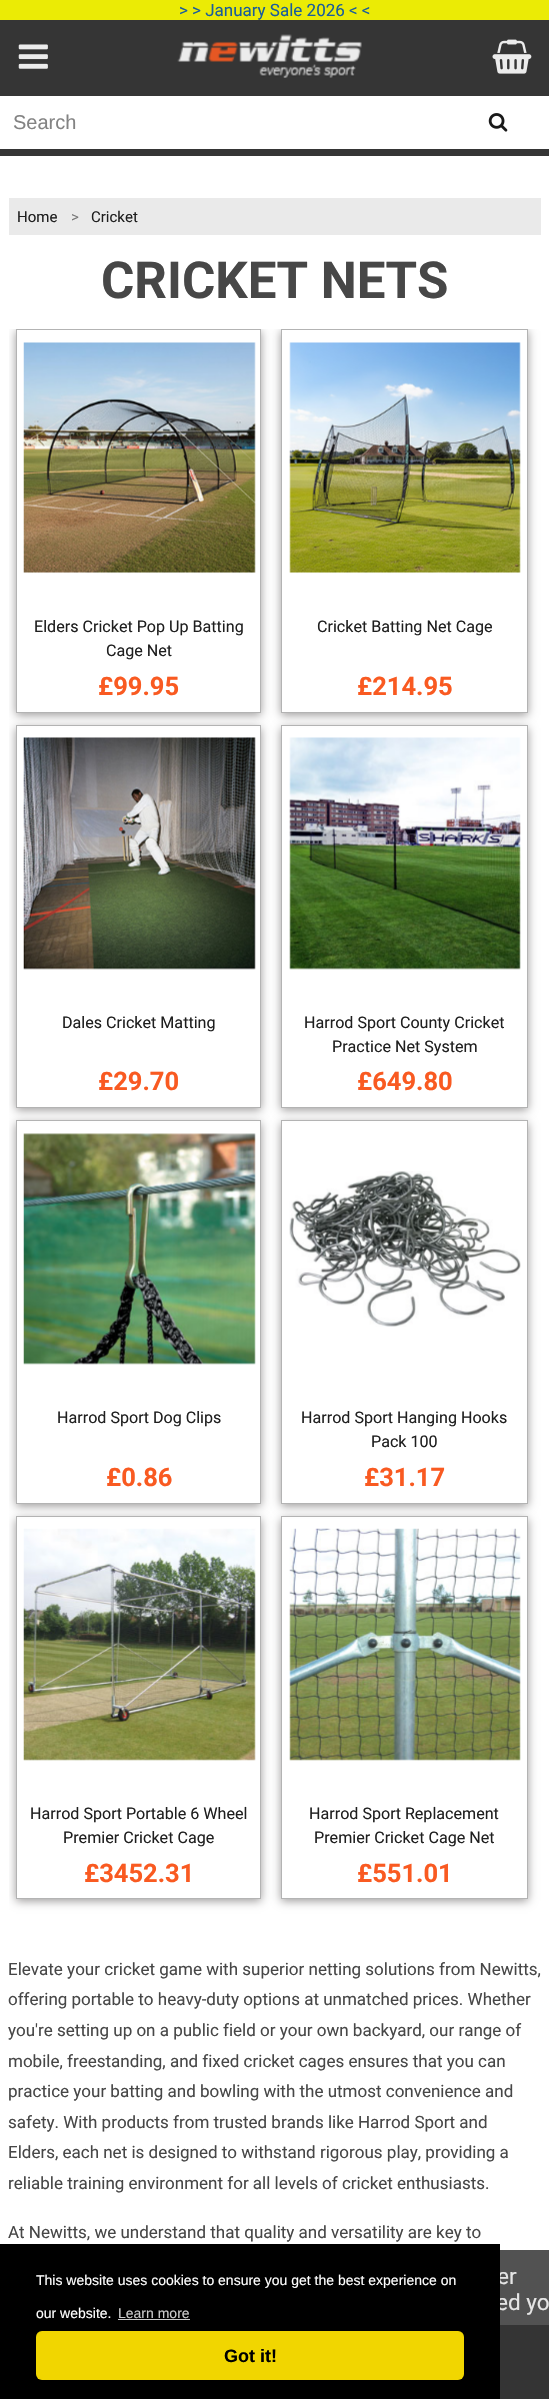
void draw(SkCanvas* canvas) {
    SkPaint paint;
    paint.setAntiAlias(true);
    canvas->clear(0xFFFFFFFF);
    paint.setColor(0xFF525252);
    canvas->drawRect(SkRect::MakeXYWH(500, 2250, 49, 149), paint);
    paint.setColor(0xFF353535);
    canvas->drawRect(SkRect::MakeXYWH(0, 20, 549, 136), paint);
    paint.setColor(0xFFEBEB05);
    canvas->drawRect(SkRect::MakeXYWH(0, 0, 549, 20), paint);
    SkFont font1(fontMgr->matchFamilyStyle("Roboto", SkFontStyle::Normal()), 17);
    font1.setSubpixel(true);
    paint.setColor(0xFF1A5D9C);
    canvas->drawString("> > January Sale 2026 < <", 179, 16, font1, paint);
    canvas->drawImageRect(SkImages::DeferredFromEncodedData(SkData::MakeFromFileName("img1.png")), SkRect::MakeXYWH(18, 44, 30, 25), SkSamplingOptions());
    canvas->drawImageRect(SkImages::DeferredFromEncodedData(SkData::MakeFromFileName("img2.png")), SkRect::MakeXYWH(177, 34, 185, 44), SkSamplingOptions());
    canvas->drawImageRect(SkImages::DeferredFromEncodedData(SkData::MakeFromFileName("img3.png")), SkRect::MakeXYWH(492, 39, 40, 35), SkSamplingOptions());
    paint.setColor(0xFFFFFFFF);
    canvas->drawRect(SkRect::MakeXYWH(0, 96, 549, 53), paint);
    SkFont font2(fontMgr->matchFamilyStyle("Liberation Sans", SkFontStyle::Normal()), 20);
    font2.setSubpixel(true);
    paint.setColor(0xFF838383);
    canvas->drawString("Search", 13, 129, font2, paint);
    canvas->drawImageRect(SkImages::DeferredFromEncodedData(SkData::MakeFromFileName("img4.png")), SkRect::MakeXYWH(488, 113, 20, 19), SkSamplingOptions());
    paint.setColor(0xFFEAEAEA);
    canvas->drawRect(SkRect::MakeXYWH(9, 198, 532, 37), paint);
    SkFont font3(fontMgr->matchFamilyStyle("Roboto", SkFontStyle::Normal()), 15);
    font3.setSubpixel(true);
    paint.setColor(0xFF1F1F1F);
    canvas->drawString("Home", 17, 222, font3, paint);
    paint.setColor(0xFF777777);
    canvas->drawString(">", 71, 222, font3, paint);
    paint.setColor(0xFF1F1F1F);
    canvas->drawString("Cricket", 91, 222, font3, paint);
    SkFont font4(fontMgr->matchFamilyStyle("Roboto", SkFontStyle::Bold()), 51);
    font4.setSubpixel(true);
    paint.setColor(0xFF474747);
    canvas->drawString("CRICKET NETS", 101, 298, font4, paint);
    canvas->save();
    canvas->clipRect(SkRect::MakeXYWH(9, 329, 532, 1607));
    canvas->clipPath(SkPathBuilder(SkPathFillType::kEvenOdd).moveTo(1, 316).lineTo(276, 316).lineTo(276, 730).lineTo(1, 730).close().moveTo(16, 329).lineTo(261, 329).lineTo(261, 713).lineTo(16, 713).close().detach(), true);
    paint.setColor(0xFF9B9999);
    paint.setMaskFilter(SkMaskFilter::MakeBlur(kNormal_SkBlurStyle, 4.5f));
    canvas->drawRect(SkRect::MakeXYWH(16, 331, 245, 384), paint);
    paint.setMaskFilter(nullptr);
    canvas->restore();
    paint.setStyle(SkPaint::kStroke_Style);
    paint.setStrokeWidth(1);
    paint.setColor(0xFFB3B3B3);
    canvas->drawRect(SkRect::MakeXYWH(16.5f, 329.5f, 244, 383), paint);
    canvas->drawImageRect(SkImages::DeferredFromEncodedData(SkData::MakeFromFileName("img5.png")), SkRect::MakeXYWH(23, 342, 233, 231), SkSamplingOptions());
    SkFont font5(fontMgr->matchFamilyStyle("Roboto", SkFontStyle::Normal()), 16.1f);
    font5.setSubpixel(true);
    paint.setStyle(SkPaint::kFill_Style);
    paint.setColor(0xFF1F1F1F);
    canvas->drawString("Elders Cricket Pop Up Batting", 34, 632, font5, paint);
    canvas->drawString("Cage Net", 106, 656, font5, paint);
    SkFont font6(fontMgr->matchFamilyStyle("Roboto", SkFontStyle::Bold()), 25.5f);
    font6.setSubpixel(true);
    paint.setColor(0xFFF95A21);
    canvas->drawString("£99.95", 98, 695, font6, paint);
    canvas->save();
    canvas->clipRect(SkRect::MakeXYWH(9, 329, 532, 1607));
    canvas->clipPath(SkPathBuilder(SkPathFillType::kEvenOdd).moveTo(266, 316).lineTo(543, 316).lineTo(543, 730).lineTo(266, 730).close().moveTo(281, 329).lineTo(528, 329).lineTo(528, 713).lineTo(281, 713).close().detach(), true);
    paint.setColor(0xFF9B9999);
    paint.setMaskFilter(SkMaskFilter::MakeBlur(kNormal_SkBlurStyle, 4.5f));
    canvas->drawRect(SkRect::MakeXYWH(281, 331, 247, 384), paint);
    paint.setMaskFilter(nullptr);
    canvas->restore();
    paint.setStyle(SkPaint::kStroke_Style);
    paint.setColor(0xFFB3B3B3);
    canvas->drawRect(SkRect::MakeXYWH(281.5f, 329.5f, 246, 383), paint);
    canvas->drawImageRect(SkImages::DeferredFromEncodedData(SkData::MakeFromFileName("img6.png")), SkRect::MakeXYWH(289, 342, 232, 231), SkSamplingOptions());
    paint.setStyle(SkPaint::kFill_Style);
    paint.setColor(0xFF1F1F1F);
    canvas->drawString("Cricket Batting Net Cage", 317, 632, font5, paint);
    paint.setColor(0xFFF95A21);
    canvas->drawString("£214.95", 357, 695, font6, paint);
    canvas->save();
    canvas->clipRect(SkRect::MakeXYWH(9, 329, 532, 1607));
    canvas->clipPath(SkPathBuilder(SkPathFillType::kEvenOdd).moveTo(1, 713).lineTo(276, 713).lineTo(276, 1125).lineTo(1, 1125).close().moveTo(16, 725).lineTo(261, 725).lineTo(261, 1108).lineTo(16, 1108).close().detach(), true);
    paint.setColor(0xFF9B9999);
    paint.setMaskFilter(SkMaskFilter::MakeBlur(kNormal_SkBlurStyle, 4.5f));
    canvas->drawRect(SkRect::MakeXYWH(16, 728, 245, 382), paint);
    paint.setMaskFilter(nullptr);
    canvas->restore();
    paint.setStyle(SkPaint::kStroke_Style);
    paint.setColor(0xFFB3B3B3);
    canvas->drawRect(SkRect::MakeXYWH(16.5f, 725.5f, 244, 382), paint);
    canvas->drawImageRect(SkImages::DeferredFromEncodedData(SkData::MakeFromFileName("img7.png")), SkRect::MakeXYWH(23, 737, 233, 233), SkSamplingOptions());
    paint.setStyle(SkPaint::kFill_Style);
    paint.setColor(0xFF1F1F1F);
    canvas->drawString("Dales Cricket Matting", 62, 1028, font5, paint);
    paint.setColor(0xFFF95A21);
    canvas->drawString("£29.70", 98, 1090, font6, paint);
    canvas->save();
    canvas->clipPath(SkPathBuilder(SkPathFillType::kEvenOdd).moveTo(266, 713).lineTo(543, 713).lineTo(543, 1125).lineTo(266, 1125).close().moveTo(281, 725).lineTo(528, 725).lineTo(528, 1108).lineTo(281, 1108).close().detach(), true);
    paint.setColor(0xFF9B9999);
    paint.setMaskFilter(SkMaskFilter::MakeBlur(kNormal_SkBlurStyle, 4.5f));
    canvas->drawRect(SkRect::MakeXYWH(281, 728, 247, 382), paint);
    paint.setMaskFilter(nullptr);
    canvas->restore();
    paint.setStyle(SkPaint::kStroke_Style);
    paint.setColor(0xFFB3B3B3);
    canvas->drawRect(SkRect::MakeXYWH(281.5f, 725.5f, 246, 382), paint);
    canvas->drawImageRect(SkImages::DeferredFromEncodedData(SkData::MakeFromFileName("img8.png")), SkRect::MakeXYWH(289, 737, 232, 233), SkSamplingOptions());
    paint.setStyle(SkPaint::kFill_Style);
    paint.setColor(0xFF1F1F1F);
    canvas->drawString("Harrod Sport County Cricket", 304, 1028, font5, paint);
    canvas->drawString("Practice Net System", 332, 1052, font5, paint);
    paint.setColor(0xFFF95A21);
    canvas->drawString("£649.80", 357, 1090, font6, paint);
    canvas->save();
    canvas->clipRect(SkRect::MakeXYWH(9, 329, 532, 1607));
    canvas->clipPath(SkPathBuilder(SkPathFillType::kEvenOdd).moveTo(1, 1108).lineTo(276, 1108).lineTo(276, 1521).lineTo(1, 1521).close().moveTo(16, 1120).lineTo(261, 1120).lineTo(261, 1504).lineTo(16, 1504).close().detach(), true);
    paint.setColor(0xFF9B9999);
    paint.setMaskFilter(SkMaskFilter::MakeBlur(kNormal_SkBlurStyle, 4.5f));
    canvas->drawRect(SkRect::MakeXYWH(16, 1123, 245, 383), paint);
    paint.setMaskFilter(nullptr);
    canvas->restore();
    paint.setStyle(SkPaint::kStroke_Style);
    paint.setColor(0xFFB3B3B3);
    canvas->drawRect(SkRect::MakeXYWH(16.5f, 1120.5f, 244, 383), paint);
    canvas->drawImageRect(SkImages::DeferredFromEncodedData(SkData::MakeFromFileName("img9.png")), SkRect::MakeXYWH(23, 1133, 233, 232), SkSamplingOptions());
    paint.setStyle(SkPaint::kFill_Style);
    paint.setColor(0xFF1F1F1F);
    canvas->drawString("Harrod Sport Dog Clips", 57, 1423, font5, paint);
    paint.setColor(0xFFF95A21);
    canvas->drawString("£0.86", 106, 1486, font6, paint);
    canvas->save();
    canvas->clipPath(SkPathBuilder(SkPathFillType::kEvenOdd).moveTo(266, 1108).lineTo(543, 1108).lineTo(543, 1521).lineTo(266, 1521).close().moveTo(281, 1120).lineTo(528, 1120).lineTo(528, 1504).lineTo(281, 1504).close().detach(), true);
    paint.setColor(0xFF9B9999);
    paint.setMaskFilter(SkMaskFilter::MakeBlur(kNormal_SkBlurStyle, 4.5f));
    canvas->drawRect(SkRect::MakeXYWH(281, 1123, 247, 383), paint);
    paint.setMaskFilter(nullptr);
    canvas->restore();
    paint.setStyle(SkPaint::kStroke_Style);
    paint.setColor(0xFFB3B3B3);
    canvas->drawRect(SkRect::MakeXYWH(281.5f, 1120.5f, 246, 383), paint);
    canvas->drawImageRect(SkImages::DeferredFromEncodedData(SkData::MakeFromFileName("img10.png")), SkRect::MakeXYWH(289, 1171, 232, 156), SkSamplingOptions());
    paint.setStyle(SkPaint::kFill_Style);
    paint.setColor(0xFF1F1F1F);
    canvas->drawString("Harrod Sport Hanging Hooks", 301, 1423, font5, paint);
    canvas->drawString("Pack 100", 371, 1447, font5, paint);
    paint.setColor(0xFFF95A21);
    canvas->drawString("£31.17", 364, 1486, font6, paint);
    canvas->save();
    canvas->clipRect(SkRect::MakeXYWH(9, 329, 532, 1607));
    canvas->clipPath(SkPathBuilder(SkPathFillType::kEvenOdd).moveTo(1, 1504).lineTo(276, 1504).lineTo(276, 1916).lineTo(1, 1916).close().moveTo(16, 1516).lineTo(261, 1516).lineTo(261, 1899).lineTo(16, 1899).close().detach(), true);
    paint.setColor(0xFF9B9999);
    paint.setMaskFilter(SkMaskFilter::MakeBlur(kNormal_SkBlurStyle, 4.5f));
    canvas->drawRect(SkRect::MakeXYWH(16, 1519, 245, 382), paint);
    paint.setMaskFilter(nullptr);
    canvas->restore();
    paint.setStyle(SkPaint::kStroke_Style);
    paint.setColor(0xFFB3B3B3);
    canvas->drawRect(SkRect::MakeXYWH(16.5f, 1516.5f, 244, 382), paint);
    canvas->drawImageRect(SkImages::DeferredFromEncodedData(SkData::MakeFromFileName("img11.png")), SkRect::MakeXYWH(23, 1528, 233, 233), SkSamplingOptions());
    paint.setStyle(SkPaint::kFill_Style);
    paint.setColor(0xFF1F1F1F);
    canvas->drawString("Harrod Sport Portable 6 Wheel", 30, 1819, font5, paint);
    canvas->drawString("Premier Cricket Cage", 63, 1843, font5, paint);
    paint.setColor(0xFFF95A21);
    canvas->drawString("£3452.31", 84, 1882, font6, paint);
    canvas->save();
    canvas->clipPath(SkPathBuilder(SkPathFillType::kEvenOdd).moveTo(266, 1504).lineTo(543, 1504).lineTo(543, 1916).lineTo(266, 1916).close().moveTo(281, 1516).lineTo(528, 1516).lineTo(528, 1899).lineTo(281, 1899).close().detach(), true);
    paint.setColor(0xFF9B9999);
    paint.setMaskFilter(SkMaskFilter::MakeBlur(kNormal_SkBlurStyle, 4.5f));
    canvas->drawRect(SkRect::MakeXYWH(281, 1519, 247, 382), paint);
    paint.setMaskFilter(nullptr);
    canvas->restore();
    paint.setStyle(SkPaint::kStroke_Style);
    paint.setColor(0xFFB3B3B3);
    canvas->drawRect(SkRect::MakeXYWH(281.5f, 1516.5f, 246, 382), paint);
    canvas->drawImageRect(SkImages::DeferredFromEncodedData(SkData::MakeFromFileName("img12.png")), SkRect::MakeXYWH(289, 1528, 232, 233), SkSamplingOptions());
    paint.setStyle(SkPaint::kFill_Style);
    paint.setColor(0xFF1F1F1F);
    canvas->drawString("Harrod Sport Replacement", 309, 1819, font5, paint);
    canvas->drawString("Premier Cricket Cage Net", 314, 1843, font5, paint);
    paint.setColor(0xFFF95A21);
    canvas->drawString("£551.01", 357, 1882, font6, paint);
    paint.setColor(0xFF474747);
    canvas->drawString("Elevate your cricket game with superior netting solutions from Newitts,", 8, 1975, font1, paint);
    canvas->drawString("offering portable to heavy-duty options at unmatched prices. Whether", 8, 2005, font1, paint);
    canvas->drawString("you're setting up on a public field or your own backyard, our range of", 8, 2036, font1, paint);
    canvas->drawString("mobile, freestanding, and fixed cricket cages ensures that you can", 8, 2067, font1, paint);
    canvas->drawString("practice your batting and bowling with the utmost convenience and", 8, 2097, font1, paint);
    canvas->drawString("safety. With products from trusted brands like Harrod Sport and", 8, 2128, font1, paint);
    canvas->drawString("Elders, each net is designed to withstand rigorous play, providing a", 8, 2158, font1, paint);
    canvas->drawString("reliable training environment for all levels of cricket enthusiasts.", 8, 2189, font1, paint);
    canvas->drawString("At Newitts, we understand that quality and versatility are key to", 8, 2238, font1, paint);
    SkFont font7(fontMgr->matchFamilyStyle("Roboto", SkFontStyle::Normal()), 22.5f);
    font7.setSubpixel(true);
    paint.setColor(0xFFE5E5E5);
    canvas->drawString("er", 497, 2284, font7, paint);
    canvas->drawString("ed yo", 496, 2310, font7, paint);
    paint.setColor(0xFF000000);
    canvas->drawRect(SkRect::MakeXYWH(0, 2244, 500, 155), paint);
    SkFont font8(fontMgr->matchFamilyStyle("Liberation Sans", SkFontStyle::Normal()), 14);
    font8.setSubpixel(true);
    paint.setColor(0xFFFFFFFF);
    canvas->drawString("This website uses cookies to ensure you get the best experience on", 36, 2285, font8, paint);
    canvas->drawString("our website.", 36, 2318, font8, paint);
    paint.setColor(0xFFCCCCCC);
    canvas->drawString("Learn more", 118, 2318, font8, paint);
    canvas->drawRect(SkRect::MakeXYWH(118, 2319, 72, 1), paint);
    paint.setColor(0xFFF1D600);
    canvas->drawRoundRect(SkRect::MakeXYWH(36, 2331, 428, 49), 6, 6, paint);
    SkFont font9(fontMgr->matchFamilyStyle("Liberation Sans", SkFontStyle::Bold()), 18);
    font9.setSubpixel(true);
    paint.setColor(0xFF000000);
    canvas->drawString("Got it!", 224, 2362, font9, paint);
    paint.setColor(0xE6303030);
    canvas->drawRect(SkRect::MakeXYWH(500, 2325, 49, 74), paint);
}
